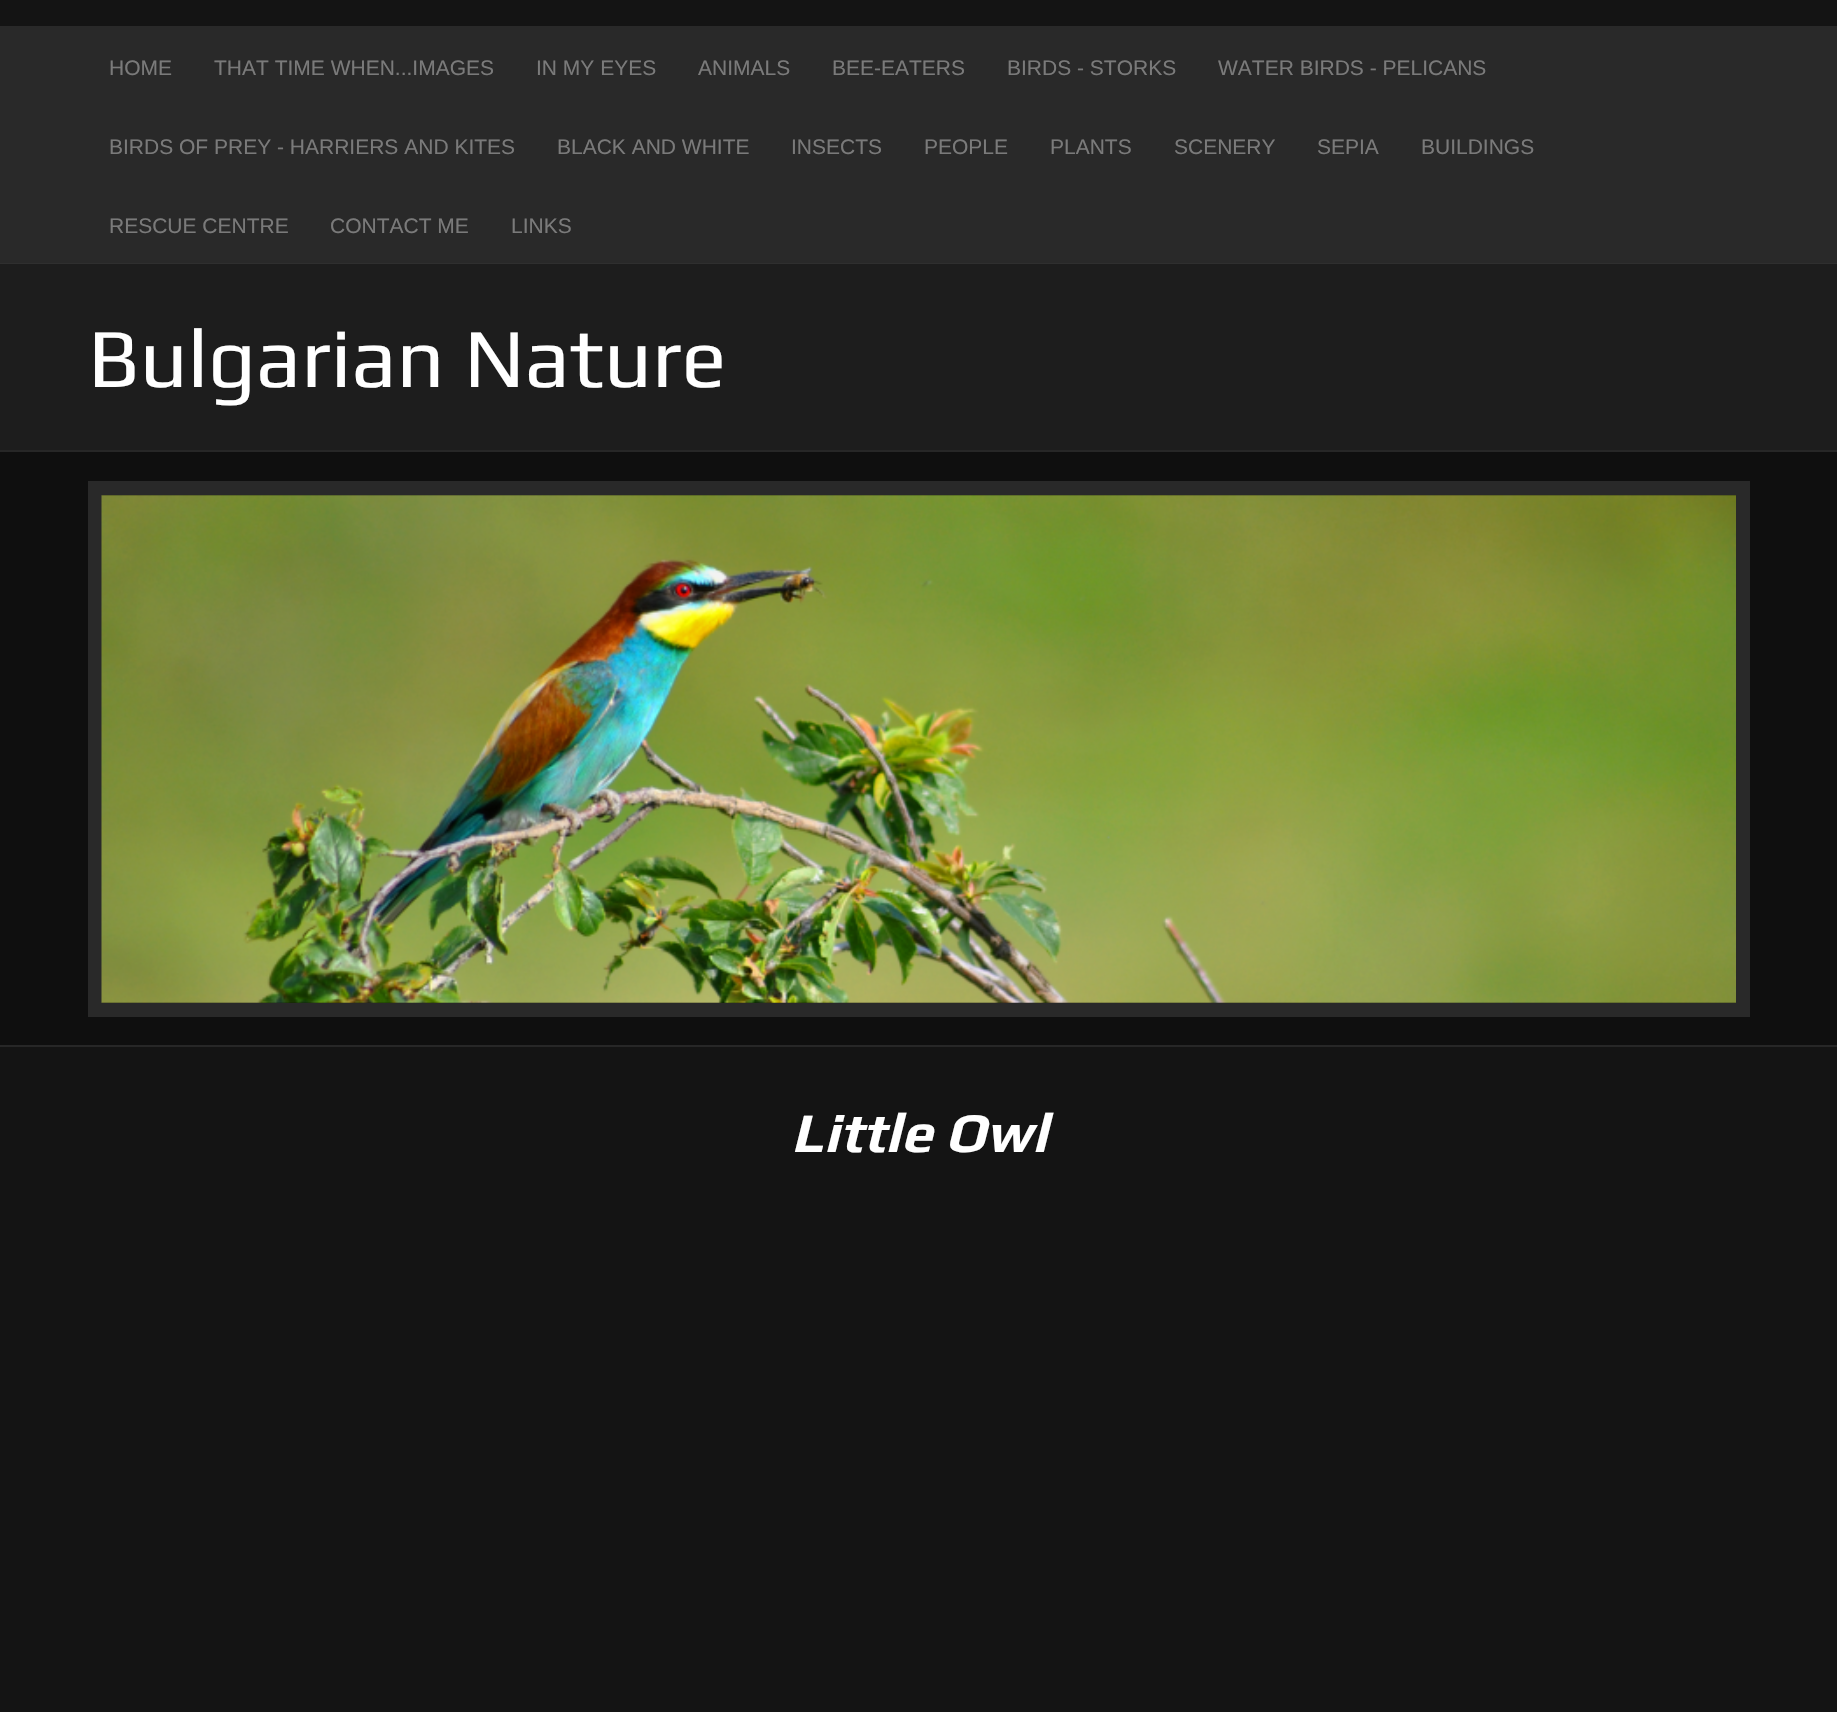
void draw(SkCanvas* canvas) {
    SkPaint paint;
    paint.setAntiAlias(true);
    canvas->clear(0xFF141414);
    paint.setColor(0xFF292929);
    canvas->drawRect(SkRect::MakeXYWH(0, 26, 1837, 237), paint);
    paint.setColor(0xFF2F2F2F);
    canvas->drawRect(SkRect::MakeXYWH(0, 263, 1837, 1), paint);
    SkFont font1(fontMgr->matchFamilyStyle("Liberation Sans", SkFontStyle::Normal()), 21);
    font1.setSubpixel(true);
    paint.setColor(0xFF7A7A7A);
    canvas->drawString("HOME", 109, 75, font1, paint);
    canvas->drawString("THAT TIME WHEN...IMAGES", 214, 75, font1, paint);
    canvas->drawString("IN MY EYES", 536, 75, font1, paint);
    canvas->drawString("ANIMALS", 698, 75, font1, paint);
    canvas->drawString("BEE-EATERS", 832, 75, font1, paint);
    canvas->drawString("BIRDS - STORKS", 1007, 75, font1, paint);
    canvas->drawString("WATER BIRDS - PELICANS", 1218, 75, font1, paint);
    canvas->drawString("BIRDS OF PREY - HARRIERS AND KITES", 109, 154, font1, paint);
    canvas->drawString("BLACK AND WHITE", 557, 154, font1, paint);
    canvas->drawString("INSECTS", 791, 154, font1, paint);
    canvas->drawString("PEOPLE", 924, 154, font1, paint);
    canvas->drawString("PLANTS", 1050, 154, font1, paint);
    canvas->drawString("SCENERY", 1174, 154, font1, paint);
    canvas->drawString("SEPIA", 1317, 154, font1, paint);
    canvas->drawString("BUILDINGS", 1421, 154, font1, paint);
    canvas->drawString("RESCUE CENTRE", 109, 233, font1, paint);
    canvas->drawString("CONTACT ME", 330, 233, font1, paint);
    canvas->drawString("LINKS", 511, 233, font1, paint);
    paint.setColor(0xFF1D1D1D);
    canvas->drawRect(SkRect::MakeXYWH(0, 264, 1837, 186), paint);
    paint.setColor(0xFF272727);
    canvas->drawRect(SkRect::MakeXYWH(0, 450, 1837, 2), paint);
    SkFont font2(fontMgr->matchFamilyStyle("Play", SkFontStyle::Normal()), 84);
    font2.setSubpixel(true);
    paint.setColor(0xFFFFFFFF);
    canvas->drawString("Bulgarian Nature", 88, 387, font2, paint);
    paint.setColor(0xFF0F0F0F);
    canvas->drawRect(SkRect::MakeXYWH(0, 452, 1837, 593), paint);
    paint.setColor(0xFF272727);
    canvas->drawRect(SkRect::MakeXYWH(0, 1045, 1837, 2), paint);
    paint.setStyle(SkPaint::kStroke_Style);
    paint.setStrokeWidth(14);
    paint.setColor(0xFF292929);
    canvas->drawRect(SkRect::MakeXYWH(95, 488, 1648, 522), paint);
    canvas->drawImageRect(SkImages::DeferredFromEncodedData(SkData::MakeFromFileName("img1.png")), SkRect::MakeXYWH(101, 495, 1635, 508), SkSamplingOptions());
    SkFont font3(fontMgr->matchFamilyStyle("Play", SkFontStyle::BoldItalic()), 56);
    font3.setSubpixel(true);
    paint.setStyle(SkPaint::kFill_Style);
    paint.setColor(0xFFFFFFFF);
    canvas->drawString("Little Owl", 791, 1152, font3, paint);
}
